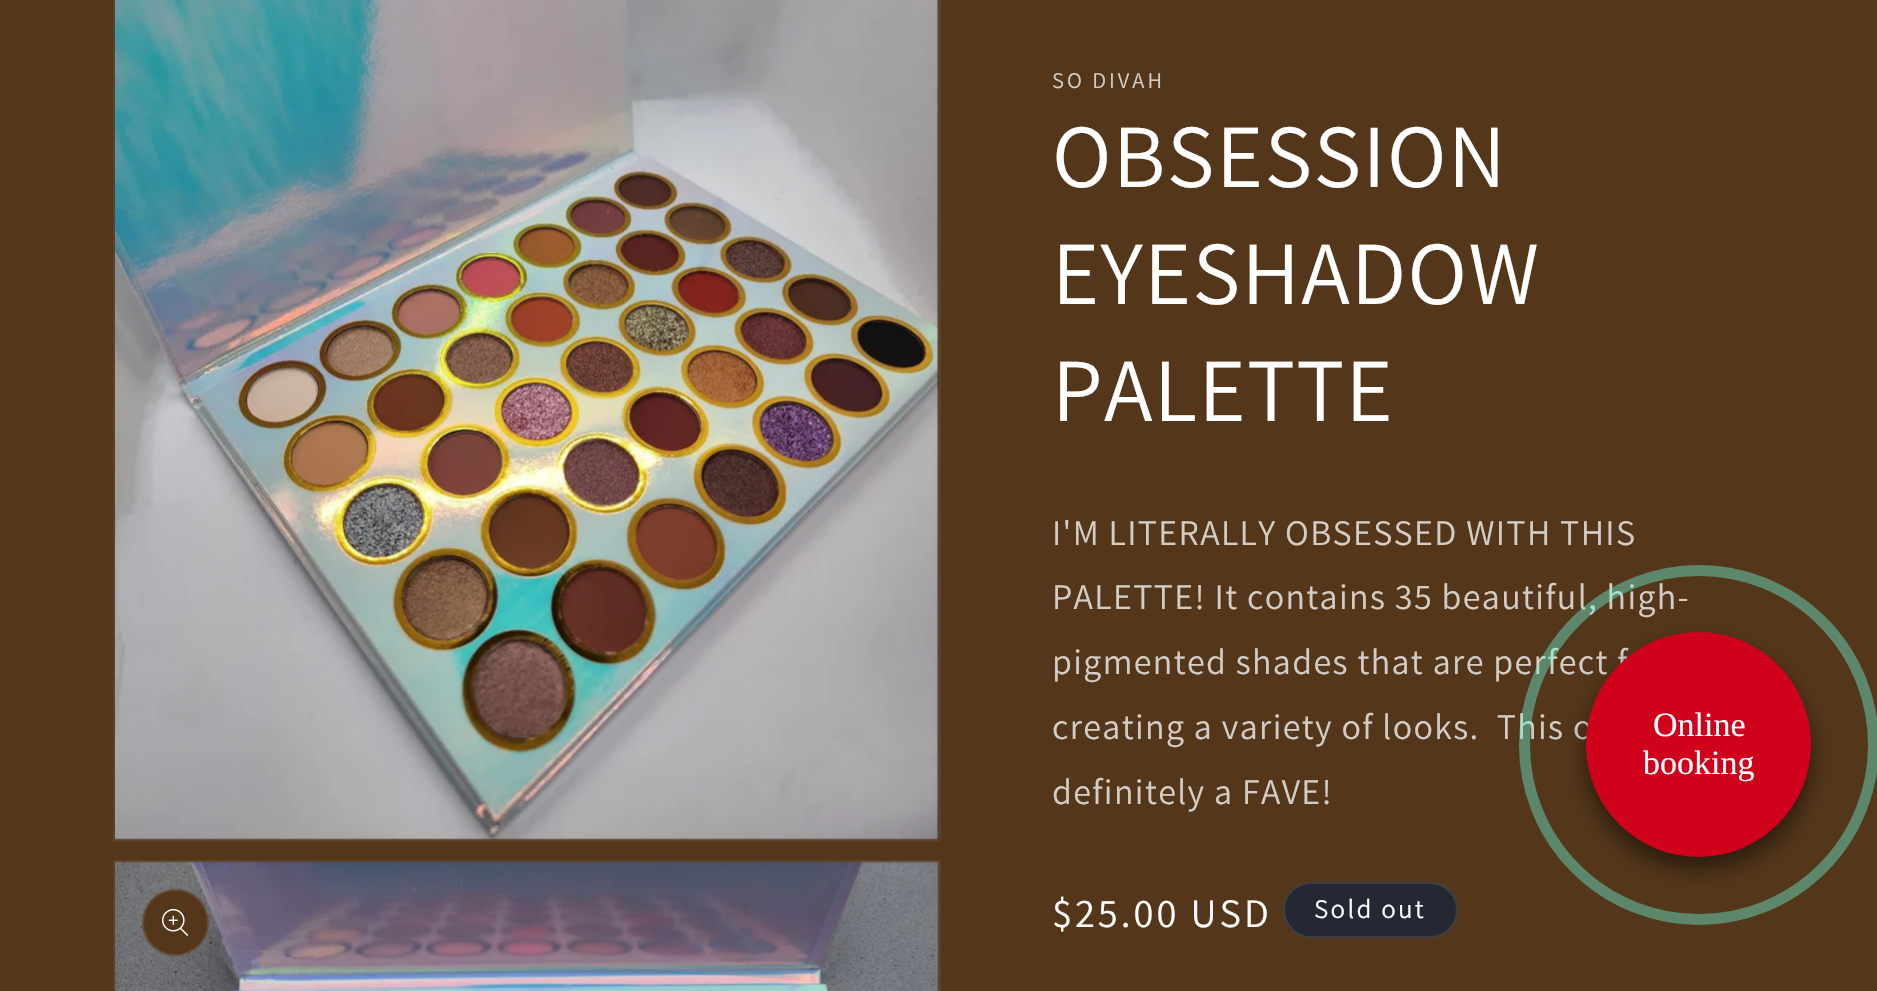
void draw(SkCanvas* canvas) {
    SkPaint paint;
    paint.setAntiAlias(true);
    auto spacedText = [&](const char* s, float x, float y, const SkFont& font, const SkPaint& ink, float letter, float word) {
        std::vector<SkGlyphID> glyphs(font.countText(s, strlen(s), SkTextEncoding::kUTF8));
        std::vector<float> xs(glyphs.size());
        font.textToGlyphs(s, strlen(s), SkTextEncoding::kUTF8, glyphs);
        font.getXPos(glyphs, xs, x);
        float extra = 0;
        for (size_t i = 0; i < glyphs.size(); i++) {
            xs[i] += extra;
            extra += letter + word * (glyphs[i] == font.unicharToGlyph(' '));
        }
        canvas->drawTextBlob(SkTextBlob::MakeFromPosHGlyphs(glyphs, xs, y, font), 0, 0, ink);
    };
    canvas->clear(0xFF54361B);
    paint.setStyle(SkPaint::kStroke_Style);
    paint.setStrokeWidth(2);
    paint.setColor(0xFF5D4026);
    canvas->drawRect(SkRect::MakeXYWH(114, -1, 826, 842), paint);
    canvas->drawImageRect(SkImages::DeferredFromEncodedData(SkData::MakeFromFileName("img1.png")), SkRect::MakeXYWH(115, 0, 824, 840), SkSamplingOptions());
    canvas->drawRect(SkRect::MakeXYWH(114, 861, 826, 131), paint);
    canvas->drawImageRect(SkImages::DeferredFromEncodedData(SkData::MakeFromFileName("img2.png")), SkRect::MakeXYWH(115, 861, 824, 130), SkSamplingOptions());
    paint.setStyle(SkPaint::kFill_Style);
    paint.setColor(0xFF54361B);
    canvas->drawCircle(175.5f, 922.5f, 33.5f, paint);
    paint.setStyle(SkPaint::kStroke_Style);
    paint.setColor(0x1AFFFFFF);
    canvas->drawCircle(175.5f, 922.5f, 32.5f, paint);
    canvas->drawImageRect(SkImages::DeferredFromEncodedData(SkData::MakeFromFileName("img3.png")), SkRect::MakeXYWH(162, 908, 27, 28), SkSamplingOptions());
    SkFont font1(fontMgr->matchFamilyStyle("Assistant", SkFontStyle::Normal()), 22.5f);
    font1.setSubpixel(true);
    paint.setStyle(SkPaint::kFill_Style);
    paint.setColor(0xFFD4CDC6);
    spacedText("SO DIVAH", 1052, 88, font1, paint, 3, 0);
    SkFont font2(fontMgr->matchFamilyStyle("Assistant", SkFontStyle::Normal()), 90);
    font2.setSubpixel(true);
    paint.setColor(0xFFFFFFFF);
    spacedText("OBSESSION", 1052, 187, font2, paint, 1.35f, 0);
    spacedText("EYESHADOW", 1052, 304, font2, paint, 1.35f, 0);
    spacedText("PALETTE", 1052, 421, font2, paint, 1.35f, 0);
    SkFont font3(fontMgr->matchFamilyStyle("Assistant", SkFontStyle::Normal()), 36);
    font3.setSubpixel(true);
    paint.setColor(0xFFD4CDC6);
    spacedText("I'M LITERALLY OBSESSED WITH THIS", 1052, 545, font3, paint, 1.35f, 0);
    spacedText("PALETTE! It contains 35 beautiful, high-", 1052, 609, font3, paint, 1.35f, 0);
    spacedText("pigmented shades that are perfect f", 1052, 674, font3, paint, 1.35f, 0);
    spacedText("creating a variety of looks.  This o", 1052, 739, font3, paint, 1.35f, 0);
    spacedText("definitely a FAVE!", 1052, 804, font3, paint, 1.35f, 0);
    SkFont font4(fontMgr->matchFamilyStyle("Assistant", SkFontStyle::Normal()), 40.5f);
    font4.setSubpixel(true);
    paint.setColor(0xFFFFFFFF);
    spacedText("$25.00 USD", 1052, 927, font4, paint, 3, 0);
    paint.setColor(0xFF242833);
    canvas->drawRoundRect(SkRect::MakeXYWH(1283, 882, 175, 56), 28, 28, paint);
    paint.setStyle(SkPaint::kStroke_Style);
    paint.setColor(0x1AFFFFFF);
    canvas->drawRoundRect(SkRect::MakeXYWH(1284, 883, 173, 54), 27, 27, paint);
    SkFont font5(fontMgr->matchFamilyStyle("Assistant", SkFontStyle::Normal()), 27);
    font5.setSubpixel(true);
    paint.setStyle(SkPaint::kFill_Style);
    paint.setColor(0xFFFFFFFF);
    spacedText("Sold out", 1314, 918, font5, paint, 2.25f, 0);
    paint.setColor(0x80000000);
    paint.setMaskFilter(SkMaskFilter::MakeBlur(kNormal_SkBlurStyle, 11));
    canvas->drawRoundRect(SkRect::MakeXYWH(1586, 644, 225, 225), 112.5f, 112.5f, paint);
    paint.setMaskFilter(nullptr);
    paint.setColor(0xFFD0021B);
    canvas->drawCircle(1698.5f, 744.5f, 112.5f, paint);
    SkFont font6(fontMgr->matchFamilyStyle("Liberation Serif", SkFontStyle::Normal()), 34);
    font6.setSubpixel(true);
    paint.setColor(0xFFFFFFFF);
    canvas->drawString("Online", 1653, 736, font6, paint);
    canvas->drawString("booking", 1643, 774, font6, paint);
    paint.setStyle(SkPaint::kStroke_Style);
    paint.setStrokeWidth(11);
    paint.setColor(0x666AFFE0);
    canvas->drawCircle(1699, 745, 174.5f, paint);
}
